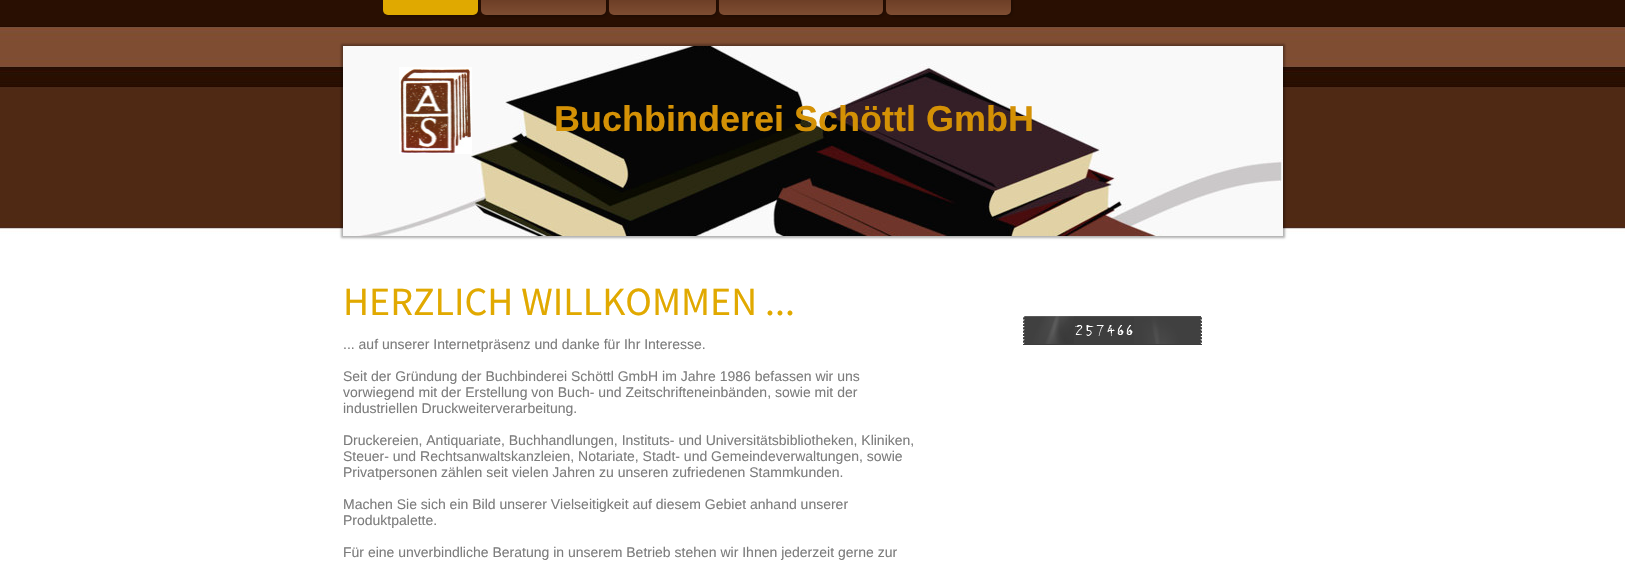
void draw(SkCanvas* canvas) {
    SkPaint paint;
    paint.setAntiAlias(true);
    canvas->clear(0xFFFFFFFF);
    canvas->drawImageRect(SkImages::DeferredFromEncodedData(SkData::MakeFromFileName("img1.png")), SkRect::MakeXYWH(0, 0, 1625, 570), SkSamplingOptions());
    paint.setColor(0x80000000);
    paint.setMaskFilter(SkMaskFilter::MakeBlur(kNormal_SkBlurStyle, 2));
    canvas->drawRoundRect(SkRect::MakeXYWH(387, -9, 91, 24), 3, 3, paint);
    paint.setMaskFilter(nullptr);
    paint.setColor(0xFFE0A900);
    canvas->drawRoundRect(SkRect::MakeXYWH(383, -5, 95, 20), 5, 5, paint);
    paint.setColor(0x80000000);
    paint.setMaskFilter(SkMaskFilter::MakeBlur(kNormal_SkBlurStyle, 2));
    canvas->drawRoundRect(SkRect::MakeXYWH(485, -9, 121, 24), 3, 3, paint);
    paint.setMaskFilter(nullptr);
    {
        const SkColor colors[] = {0xFF6C422C, 0xFF683B23, 0xFF7F4D32};
        const float stops[] = {0, 0.5f, 1};
        const SkPoint ends[] = {{544, -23}, {544, 15}};
        paint.setShader(SkGradientShader::MakeLinear(ends, colors, stops, 3, SkTileMode::kClamp));
        paint.setAlpha(255);
    }
    canvas->drawRoundRect(SkRect::MakeXYWH(481, -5, 125, 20), 5, 5, paint);
    paint.setShader(nullptr);
    paint.setColor(0x80000000);
    paint.setMaskFilter(SkMaskFilter::MakeBlur(kNormal_SkBlurStyle, 2));
    canvas->drawRoundRect(SkRect::MakeXYWH(613, -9, 103, 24), 3, 3, paint);
    paint.setMaskFilter(nullptr);
    {
        const SkColor colors[] = {0xFF6C422C, 0xFF683B23, 0xFF7F4D32};
        const float stops[] = {0, 0.5f, 1};
        const SkPoint ends[] = {{663, -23}, {663, 15}};
        paint.setShader(SkGradientShader::MakeLinear(ends, colors, stops, 3, SkTileMode::kClamp));
        paint.setAlpha(255);
    }
    canvas->drawRoundRect(SkRect::MakeXYWH(609, -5, 107, 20), 5, 5, paint);
    paint.setShader(nullptr);
    paint.setColor(0x80000000);
    paint.setMaskFilter(SkMaskFilter::MakeBlur(kNormal_SkBlurStyle, 2));
    canvas->drawRoundRect(SkRect::MakeXYWH(723, -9, 160, 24), 3, 3, paint);
    paint.setMaskFilter(nullptr);
    {
        const SkColor colors[] = {0xFF6C422C, 0xFF683B23, 0xFF7F4D32};
        const float stops[] = {0, 0.5f, 1};
        const SkPoint ends[] = {{801, -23}, {801, 15}};
        paint.setShader(SkGradientShader::MakeLinear(ends, colors, stops, 3, SkTileMode::kClamp));
        paint.setAlpha(255);
    }
    canvas->drawRoundRect(SkRect::MakeXYWH(719, -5, 164, 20), 5, 5, paint);
    paint.setShader(nullptr);
    paint.setColor(0x80000000);
    paint.setMaskFilter(SkMaskFilter::MakeBlur(kNormal_SkBlurStyle, 2));
    canvas->drawRoundRect(SkRect::MakeXYWH(890, -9, 121, 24), 3, 3, paint);
    paint.setMaskFilter(nullptr);
    {
        const SkColor colors[] = {0xFF6C422C, 0xFF683B23, 0xFF7F4D32};
        const float stops[] = {0, 0.5f, 1};
        const SkPoint ends[] = {{949, -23}, {949, 15}};
        paint.setShader(SkGradientShader::MakeLinear(ends, colors, stops, 3, SkTileMode::kClamp));
        paint.setAlpha(255);
    }
    canvas->drawRoundRect(SkRect::MakeXYWH(886, -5, 125, 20), 5, 5, paint);
    paint.setShader(nullptr);
    paint.setColor(0x4D000000);
    paint.setMaskFilter(SkMaskFilter::MakeBlur(kNormal_SkBlurStyle, 1));
    canvas->drawRect(SkRect::MakeXYWH(341, 44, 944, 194), paint);
    paint.setMaskFilter(nullptr);
    canvas->drawImageRect(SkImages::DeferredFromEncodedData(SkData::MakeFromFileName("img2.png")), SkRect::MakeXYWH(343, 46, 940, 190), SkSamplingOptions());
    canvas->drawImageRect(SkImages::DeferredFromEncodedData(SkData::MakeFromFileName("img3.png")), SkRect::MakeXYWH(399, 67, 73, 87), SkSamplingOptions());
    SkFont font1(fontMgr->matchFamilyStyle("Liberation Sans", SkFontStyle::Bold()), 36);
    font1.setSubpixel(true);
    paint.setColor(0xFFD49105);
    canvas->drawString("Buchbinderei Schöttl GmbH", 554, 131, font1, paint);
    SkFont font2(fontMgr->matchFamilyStyle("Source Sans Pro", SkFontStyle::Normal()), 40);
    font2.setSubpixel(true);
    paint.setColor(0xFFE1A900);
    canvas->drawString("HERZLICH WILLKOMMEN ...", 343, 315, font2, paint);
    SkFont font3(fontMgr->matchFamilyStyle("Liberation Sans", SkFontStyle::Normal()), 14);
    font3.setSubpixel(true);
    paint.setColor(0xFF7C7C7C);
    canvas->drawString("... auf unserer Internetpräsenz und danke für Ihr Interesse.", 343, 349, font3, paint);
    canvas->drawString("Seit der Gründung der Buchbinderei Schöttl GmbH im Jahre 1986 befassen wir uns", 343, 381, font3, paint);
    canvas->drawString("vorwiegend mit der Erstellung von Buch- und Zeitschrifteneinbänden, sowie mit der", 343, 397, font3, paint);
    canvas->drawString("industriellen Druckweiterverarbeitung.", 343, 413, font3, paint);
    canvas->drawString("Druckereien, Antiquariate, Buchhandlungen, Instituts- und Universitätsbibliotheken, Kliniken,", 343, 445, font3, paint);
    canvas->drawString("Steuer- und Rechtsanwaltskanzleien, Notariate, Stadt- und Gemeindeverwaltungen, sowie", 343, 461, font3, paint);
    canvas->drawString("Privatpersonen zählen seit vielen Jahren zu unseren zufriedenen Stammkunden.", 343, 477, font3, paint);
    canvas->drawString("Machen Sie sich ein Bild unserer Vielseitigkeit auf diesem Gebiet anhand unserer", 343, 509, font3, paint);
    canvas->drawString("Produktpalette.", 343, 525, font3, paint);
    canvas->drawString("Für eine unverbindliche Beratung in unserem Betrieb stehen wir Ihnen jederzeit gerne zur", 343, 557, font3, paint);
    canvas->drawImageRect(SkImages::DeferredFromEncodedData(SkData::MakeFromFileName("img4.png")), SkRect::MakeXYWH(1023, 316, 51, 29), SkSamplingOptions());
    canvas->drawImageRect(SkImages::DeferredFromEncodedData(SkData::MakeFromFileName("img5.png")), SkRect::MakeXYWH(1074, 316, 10, 29), SkSamplingOptions());
    canvas->drawImageRect(SkImages::DeferredFromEncodedData(SkData::MakeFromFileName("img6.png")), SkRect::MakeXYWH(1084, 316, 11, 29), SkSamplingOptions());
    canvas->drawImageRect(SkImages::DeferredFromEncodedData(SkData::MakeFromFileName("img7.png")), SkRect::MakeXYWH(1095, 316, 10, 29), SkSamplingOptions());
    canvas->drawImageRect(SkImages::DeferredFromEncodedData(SkData::MakeFromFileName("img8.png")), SkRect::MakeXYWH(1105, 316, 11, 29), SkSamplingOptions());
    canvas->drawImageRect(SkImages::DeferredFromEncodedData(SkData::MakeFromFileName("img9.png")), SkRect::MakeXYWH(1116, 316, 9, 29), SkSamplingOptions());
    canvas->drawImageRect(SkImages::DeferredFromEncodedData(SkData::MakeFromFileName("img9.png")), SkRect::MakeXYWH(1125, 316, 9, 29), SkSamplingOptions());
    canvas->drawImageRect(SkImages::DeferredFromEncodedData(SkData::MakeFromFileName("img10.png")), SkRect::MakeXYWH(1134, 316, 68, 29), SkSamplingOptions());
}
